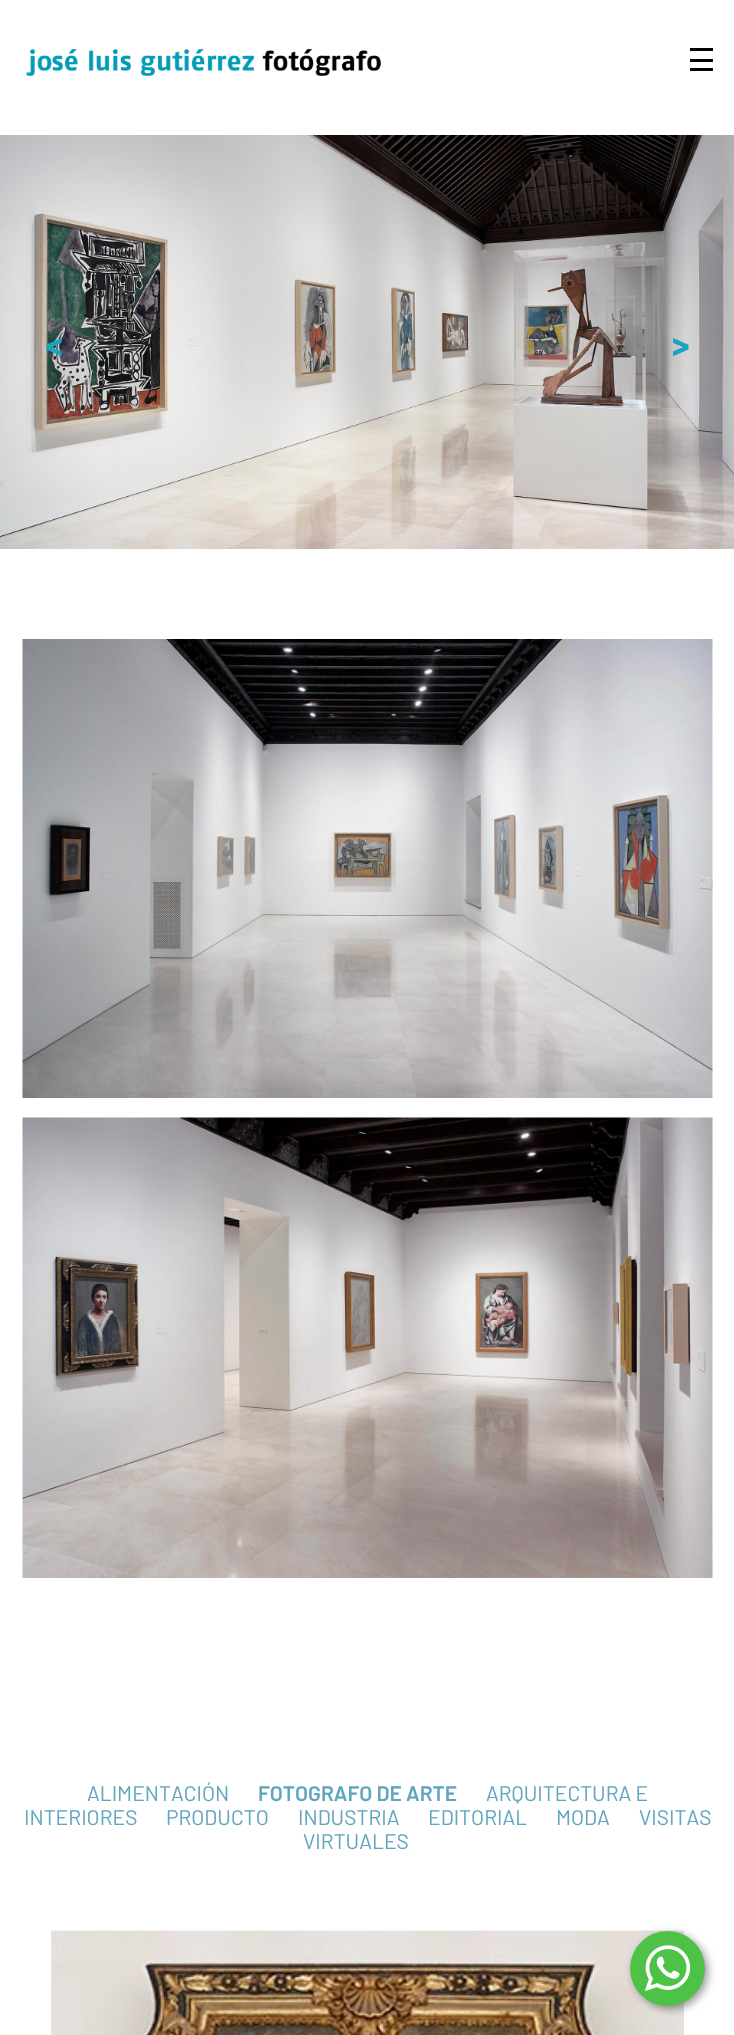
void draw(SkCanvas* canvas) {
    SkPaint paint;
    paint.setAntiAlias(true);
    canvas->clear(0xFFFFFFFF);
    canvas->drawImageRect(SkImages::DeferredFromEncodedData(SkData::MakeFromFileName("img1.png")), SkRect::MakeXYWH(26, 48, 355, 28), SkSamplingOptions());
    paint.setColor(0xFF020304);
    canvas->drawRect(SkRect::MakeXYWH(690, 48, 23, 3), paint);
    canvas->drawRect(SkRect::MakeXYWH(690, 59, 23, 3), paint);
    canvas->drawRect(SkRect::MakeXYWH(690, 68, 23, 3), paint);
    canvas->drawImageRect(SkImages::DeferredFromEncodedData(SkData::MakeFromFileName("img2.png")), SkRect::MakeXYWH(0, 135, 734, 414), SkSamplingOptions());
    SkFont font1(fontMgr->matchFamilyStyle("Barlow", SkFontStyle::Bold()), 36);
    font1.setSubpixel(true);
    paint.setColor(0xFF18A5BE);
    canvas->drawString("<", 45, 357, font1, paint);
    canvas->drawString(">", 672, 357, font1, paint);
    canvas->drawImageRect(SkImages::DeferredFromEncodedData(SkData::MakeFromFileName("img3.png")), SkRect::MakeXYWH(22, 639, 691, 459), SkSamplingOptions());
    canvas->drawImageRect(SkImages::DeferredFromEncodedData(SkData::MakeFromFileName("img4.png")), SkRect::MakeXYWH(22, 1117, 691, 461), SkSamplingOptions());
    SkFont font2(fontMgr->matchFamilyStyle("Barlow", SkFontStyle::Normal()), 21);
    font2.setSubpixel(true);
    paint.setColor(0xFF61A6BE);
    canvas->drawString("ALIMENTACIÓN", 87, 1801, font2, paint);
    SkFont font3(fontMgr->matchFamilyStyle("Barlow", SkFontStyle(600, SkFontStyle::kNormal_Width, SkFontStyle::kUpright_Slant)), 21);
    font3.setSubpixel(true);
    canvas->drawString("FOTOGRAFO DE ARTE", 258, 1801, font3, paint);
    canvas->drawString("ARQUITECTURA E", 486, 1801, font2, paint);
    canvas->drawString("INTERIORES", 24, 1825, font2, paint);
    canvas->drawString("PRODUCTO", 166, 1825, font2, paint);
    canvas->drawString("INDUSTRIA", 298, 1825, font2, paint);
    canvas->drawString("EDITORIAL", 428, 1825, font2, paint);
    canvas->drawString("MODA", 556, 1825, font2, paint);
    canvas->drawString("VISITAS", 639, 1825, font2, paint);
    canvas->drawString("VIRTUALES", 303, 1849, font2, paint);
    canvas->drawImageRect(SkImages::DeferredFromEncodedData(SkData::MakeFromFileName("img5.png")), SkRect::MakeXYWH(51, 1930, 633, 105), SkSamplingOptions());
    paint.setColor(0x66000000);
    paint.setMaskFilter(SkMaskFilter::MakeBlur(kNormal_SkBlurStyle, 4.5f));
    canvas->drawRoundRect(SkRect::MakeXYWH(633, 1934, 75, 75), 37.5f, 37.5f, paint);
    paint.setMaskFilter(nullptr);
    paint.setColor(0xFF4DC247);
    canvas->drawCircle(667.5f, 1968.5f, 37.5f, paint);
    canvas->drawImageRect(SkImages::DeferredFromEncodedData(SkData::MakeFromFileName("img6.png")), SkRect::MakeXYWH(644, 1945, 47, 46), SkSamplingOptions());
}
